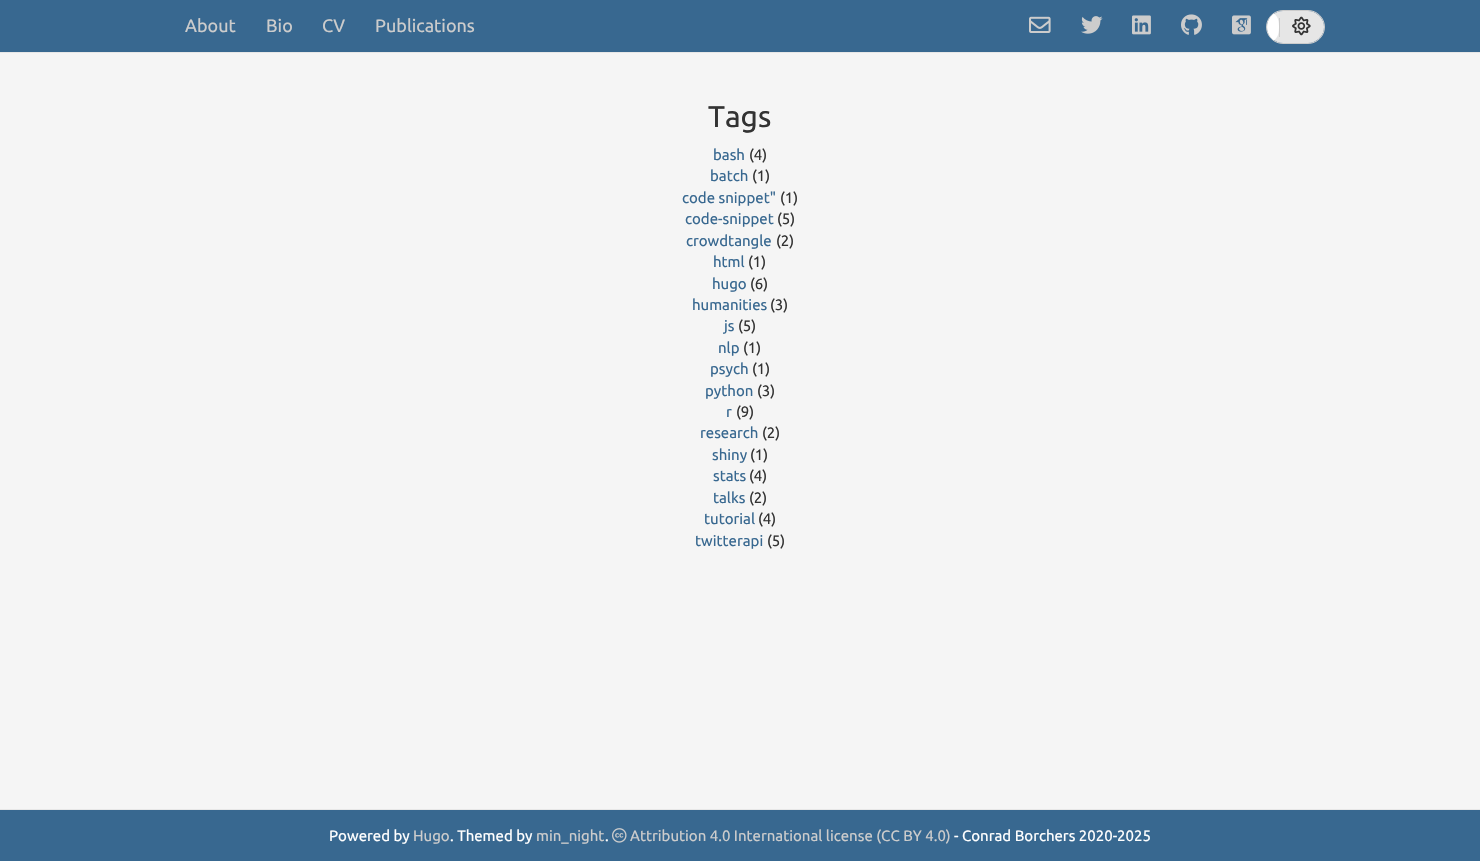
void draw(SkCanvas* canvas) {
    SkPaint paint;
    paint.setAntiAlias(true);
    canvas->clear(0xFFF5F5F5);
    paint.setColor(0xFF386890);
    canvas->drawRect(SkRect::MakeXYWH(0, 0, 1480, 52), paint);
    paint.setColor(0xFFE7E7E7);
    canvas->drawRect(SkRect::MakeXYWH(0, 52, 1480, 1), paint);
    SkFont font1(fontMgr->matchFamilyStyle("Ubuntu", SkFontStyle::Normal()), 18);
    font1.setSubpixel(true);
    paint.setColor(0xFFCCCCCC);
    canvas->drawString("About", 185, 32, font1, paint);
    canvas->drawString("Bio", 266, 32, font1, paint);
    canvas->drawString("CV", 322, 32, font1, paint);
    canvas->drawString("Publications", 375, 32, font1, paint);
    canvas->drawImageRect(SkImages::DeferredFromEncodedData(SkData::MakeFromFileName("img1.png")), SkRect::MakeXYWH(1029, 16, 22, 17), SkSamplingOptions());
    canvas->drawImageRect(SkImages::DeferredFromEncodedData(SkData::MakeFromFileName("img2.png")), SkRect::MakeXYWH(1081, 16, 22, 18), SkSamplingOptions());
    canvas->drawImageRect(SkImages::DeferredFromEncodedData(SkData::MakeFromFileName("img3.png")), SkRect::MakeXYWH(1132, 15, 19, 20), SkSamplingOptions());
    canvas->drawImageRect(SkImages::DeferredFromEncodedData(SkData::MakeFromFileName("img4.png")), SkRect::MakeXYWH(1181, 14, 21, 21), SkSamplingOptions());
    canvas->drawImageRect(SkImages::DeferredFromEncodedData(SkData::MakeFromFileName("img5.png")), SkRect::MakeXYWH(1232, 15, 19, 20), SkSamplingOptions());
    paint.setStyle(SkPaint::kStroke_Style);
    paint.setStrokeWidth(1);
    canvas->drawRoundRect(SkRect::MakeXYWH(1266.5f, 10.5f, 58, 33), 16.5f, 16.5f, paint);
    paint.setStyle(SkPaint::kFill_Style);
    paint.setColor(0xFFE6E6E6);
    canvas->drawRoundRect(SkRect::MakeXYWH(1267, 11, 57, 32), 16, 16, paint);
    canvas->drawImageRect(SkImages::DeferredFromEncodedData(SkData::MakeFromFileName("img6.png")), SkRect::MakeXYWH(1292, 16, 19, 20), SkSamplingOptions());
    paint.setColor(0xFFFFFFFF);
    canvas->drawPath(SkPathBuilder().moveTo(1274, 13.5f).cubicTo(1278.5f, 17, 1279, 22, 1279, 27).cubicTo(1279, 32, 1278.5f, 37, 1274, 40.5f).cubicTo(1265, 34, 1265, 20, 1274, 13.5f).close().detach(), paint);
    paint.setColor(0xFFCCCCCC);
    canvas->drawRect(SkRect::MakeXYWH(1279, 18, 1, 19), paint);
    SkFont font2(fontMgr->matchFamilyStyle("Ubuntu", SkFontStyle::Normal()), 30);
    font2.setSubpixel(true);
    paint.setColor(0xFF333333);
    canvas->drawString("Tags", 708, 127, font2, paint);
    SkFont font3(fontMgr->matchFamilyStyle("Ubuntu", SkFontStyle::Normal()), 15);
    font3.setSubpixel(true);
    paint.setColor(0xFF386890);
    canvas->drawString("bash", 713, 160, font3, paint);
    paint.setColor(0xFF333333);
    canvas->drawString("(4)", 749, 160, font3, paint);
    paint.setColor(0xFF386890);
    canvas->drawString("batch", 710, 181, font3, paint);
    paint.setColor(0xFF333333);
    canvas->drawString("(1)", 752, 181, font3, paint);
    paint.setColor(0xFF386890);
    canvas->drawString("code snippet\"", 682, 203, font3, paint);
    paint.setColor(0xFF333333);
    canvas->drawString("(1)", 780, 203, font3, paint);
    paint.setColor(0xFF386890);
    canvas->drawString("code-snippet", 685, 224, font3, paint);
    paint.setColor(0xFF333333);
    canvas->drawString("(5)", 777, 224, font3, paint);
    paint.setColor(0xFF386890);
    canvas->drawString("crowdtangle", 686, 246, font3, paint);
    paint.setColor(0xFF333333);
    canvas->drawString("(2)", 776, 246, font3, paint);
    paint.setColor(0xFF386890);
    canvas->drawString("html", 713, 267, font3, paint);
    paint.setColor(0xFF333333);
    canvas->drawString("(1)", 748, 267, font3, paint);
    paint.setColor(0xFF386890);
    canvas->drawString("hugo", 712, 289, font3, paint);
    paint.setColor(0xFF333333);
    canvas->drawString("(6)", 750, 289, font3, paint);
    paint.setColor(0xFF386890);
    canvas->drawString("humanities", 692, 310, font3, paint);
    paint.setColor(0xFF333333);
    canvas->drawString("(3)", 770, 310, font3, paint);
    paint.setColor(0xFF386890);
    canvas->drawString("js", 724, 331, font3, paint);
    paint.setColor(0xFF333333);
    canvas->drawString("(5)", 738, 331, font3, paint);
    paint.setColor(0xFF386890);
    canvas->drawString("nlp", 718, 353, font3, paint);
    paint.setColor(0xFF333333);
    canvas->drawString("(1)", 743, 353, font3, paint);
    paint.setColor(0xFF386890);
    canvas->drawString("psych", 710, 374, font3, paint);
    paint.setColor(0xFF333333);
    canvas->drawString("(1)", 752, 374, font3, paint);
    paint.setColor(0xFF386890);
    canvas->drawString("python", 705, 396, font3, paint);
    paint.setColor(0xFF333333);
    canvas->drawString("(3)", 757, 396, font3, paint);
    paint.setColor(0xFF386890);
    canvas->drawString("r", 726, 417, font3, paint);
    paint.setColor(0xFF333333);
    canvas->drawString("(9)", 736, 417, font3, paint);
    paint.setColor(0xFF386890);
    canvas->drawString("research", 700, 438, font3, paint);
    paint.setColor(0xFF333333);
    canvas->drawString("(2)", 762, 438, font3, paint);
    paint.setColor(0xFF386890);
    canvas->drawString("shiny", 712, 460, font3, paint);
    paint.setColor(0xFF333333);
    canvas->drawString("(1)", 750, 460, font3, paint);
    paint.setColor(0xFF386890);
    canvas->drawString("stats", 713, 481, font3, paint);
    paint.setColor(0xFF333333);
    canvas->drawString("(4)", 749, 481, font3, paint);
    paint.setColor(0xFF386890);
    canvas->drawString("talks", 713, 503, font3, paint);
    paint.setColor(0xFF333333);
    canvas->drawString("(2)", 749, 503, font3, paint);
    paint.setColor(0xFF386890);
    canvas->drawString("tutorial", 704, 524, font3, paint);
    paint.setColor(0xFF333333);
    canvas->drawString("(4)", 758, 524, font3, paint);
    paint.setColor(0xFF386890);
    canvas->drawString("twitterapi", 695, 546, font3, paint);
    paint.setColor(0xFF333333);
    canvas->drawString("(5)", 767, 546, font3, paint);
    paint.setColor(0xFF386890);
    canvas->drawRect(SkRect::MakeXYWH(0, 810, 1480, 51), paint);
    paint.setColor(0xFFE7E7E7);
    canvas->drawRect(SkRect::MakeXYWH(0, 809, 1480, 1), paint);
    paint.setColor(0xFFFFFFFF);
    canvas->drawString("Powered by", 329, 841, font3, paint);
    paint.setColor(0xFFCCCCCC);
    canvas->drawString("Hugo", 413, 841, font3, paint);
    paint.setColor(0xFFFFFFFF);
    canvas->drawString(". Themed by", 450, 841, font3, paint);
    paint.setColor(0xFFCCCCCC);
    canvas->drawString("min_night", 536, 841, font3, paint);
    paint.setColor(0xFFFFFFFF);
    canvas->drawString(".", 605, 841, font3, paint);
    canvas->drawImageRect(SkImages::DeferredFromEncodedData(SkData::MakeFromFileName("img7.png")), SkRect::MakeXYWH(612, 828, 15, 15), SkSamplingOptions());
    paint.setColor(0xFFCCCCCC);
    canvas->drawString("Attribution 4.0 International license (CC BY 4.0)", 630, 841, font3, paint);
    paint.setColor(0xFFFFFFFF);
    canvas->drawString("- Conrad Borchers 2020-2025", 954, 841, font3, paint);
}
